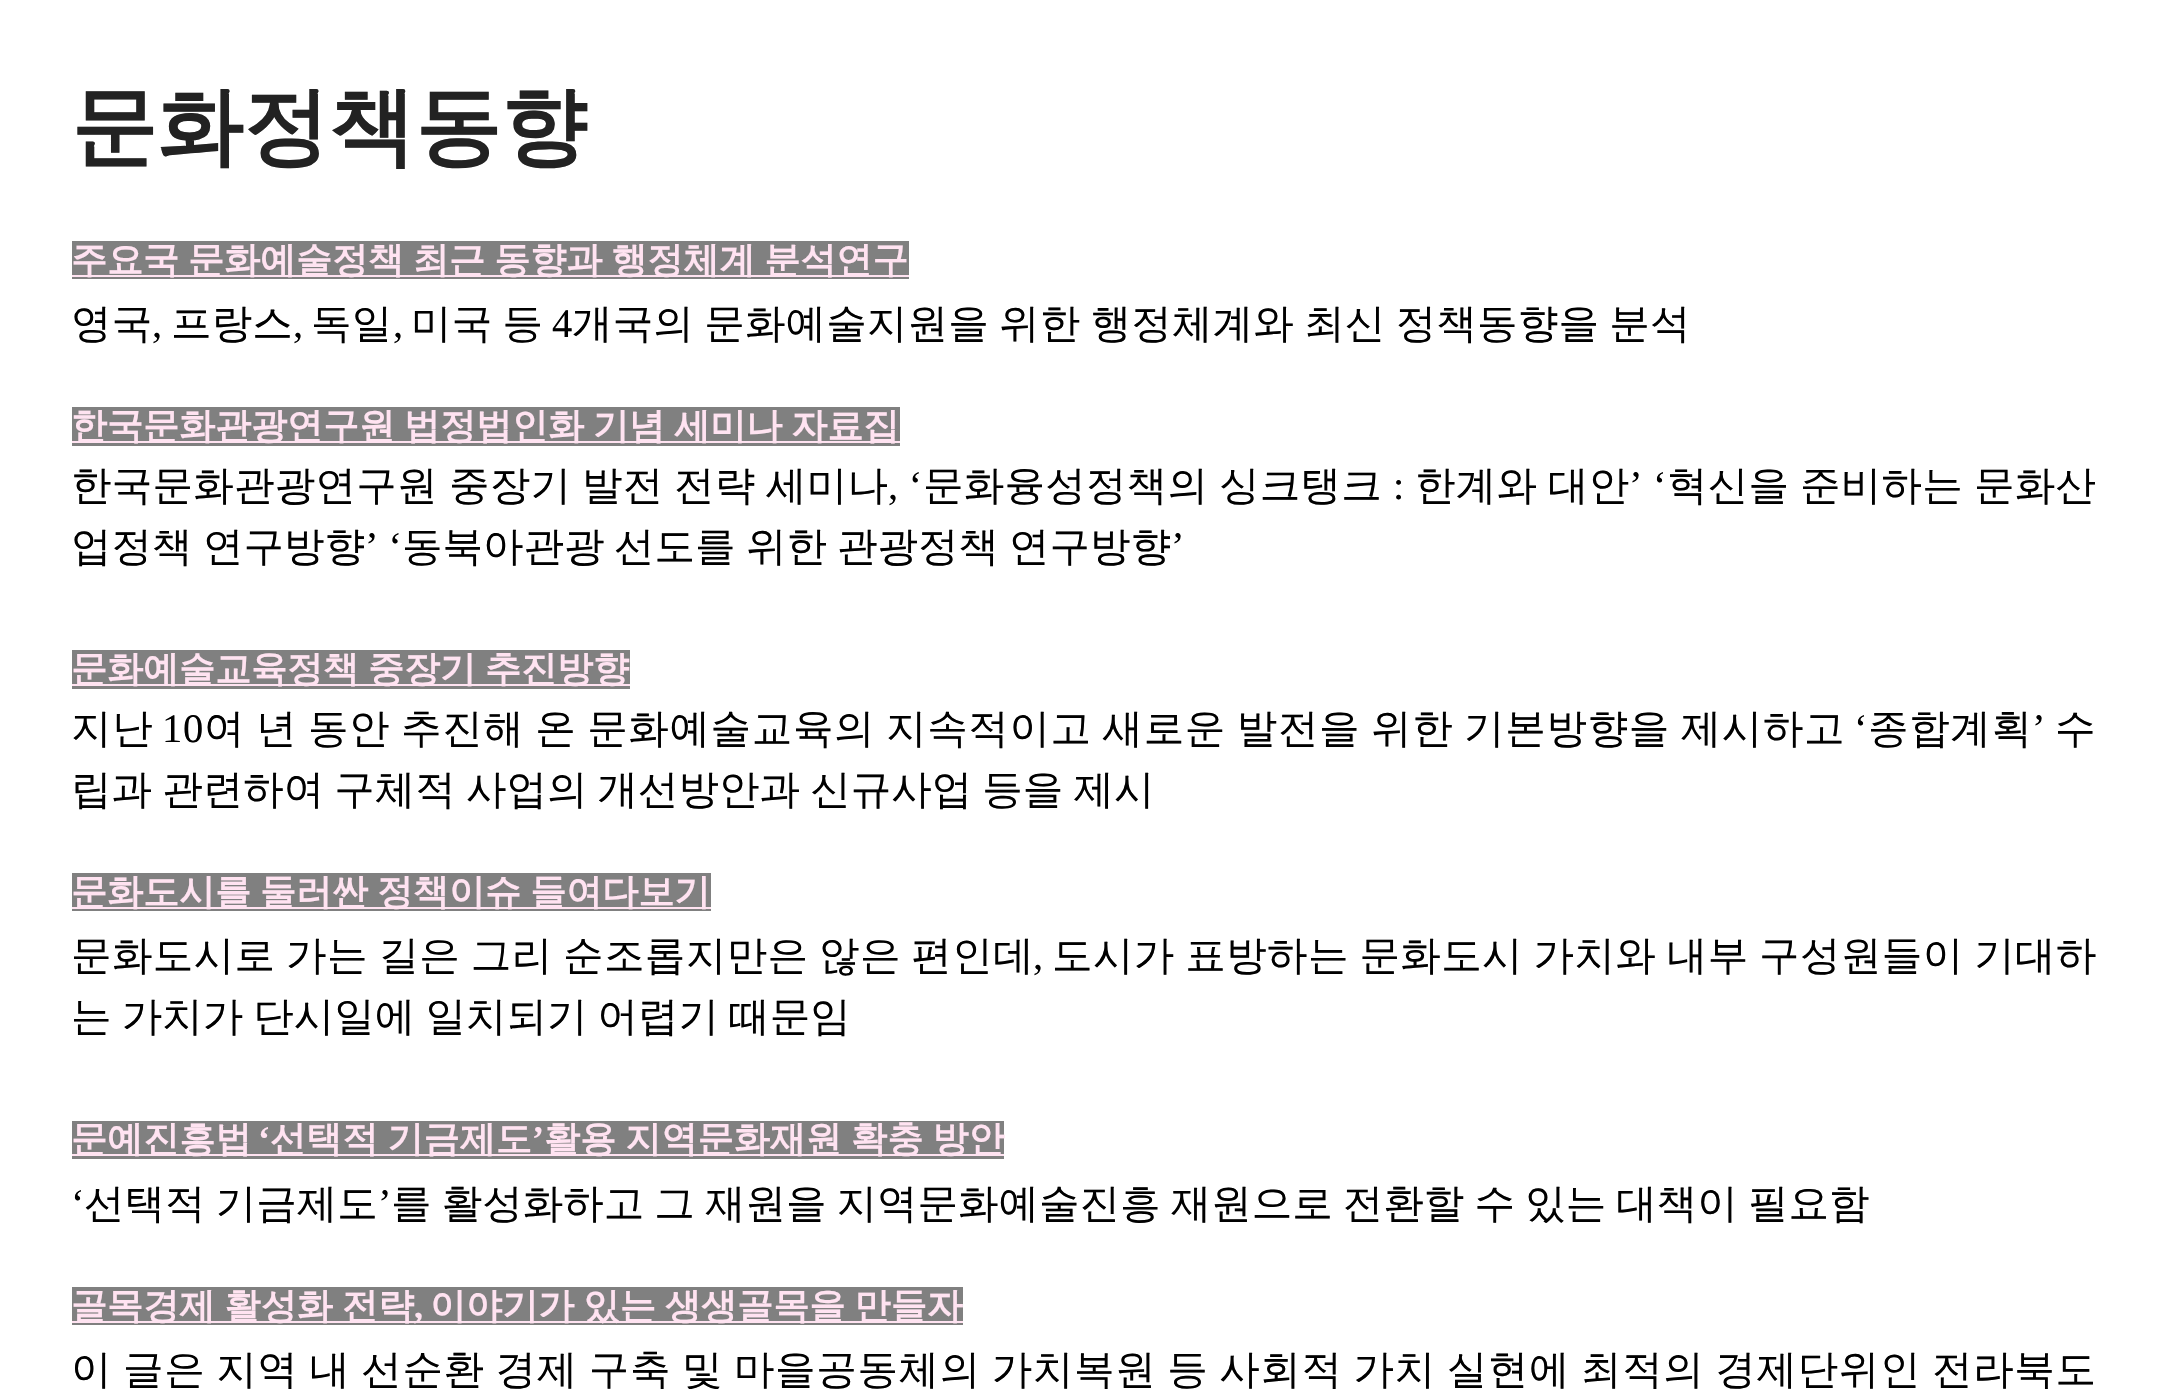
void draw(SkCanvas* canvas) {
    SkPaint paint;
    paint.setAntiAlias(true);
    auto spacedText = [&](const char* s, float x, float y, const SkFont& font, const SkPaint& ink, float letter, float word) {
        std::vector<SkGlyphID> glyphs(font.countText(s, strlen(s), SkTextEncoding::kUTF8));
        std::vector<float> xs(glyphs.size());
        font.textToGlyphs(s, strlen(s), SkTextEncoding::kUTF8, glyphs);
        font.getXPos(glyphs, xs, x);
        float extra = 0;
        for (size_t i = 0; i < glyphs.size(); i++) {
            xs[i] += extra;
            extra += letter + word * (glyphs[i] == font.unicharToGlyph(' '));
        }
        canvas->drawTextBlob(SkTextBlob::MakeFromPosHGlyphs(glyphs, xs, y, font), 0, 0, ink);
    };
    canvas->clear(0xFFFFFFFF);
    SkFont font1(fontMgr->matchFamilyStyle("WenQuanYi Zen Hei", SkFontStyle::Bold()), 86);
    font1.setSubpixel(true);
    paint.setColor(0xFF222222);
    canvas->drawString("문화정책동향", 71, 156, font1, paint);
    paint.setColor(0xFF808080);
    canvas->drawRect(SkRect::MakeXYWH(72, 241, 837, 38), paint);
    paint.setColor(0xFFFFE3F1);
    canvas->drawRect(SkRect::MakeXYWH(72, 275, 837, 2), paint);
    SkFont font2(fontMgr->matchFamilyStyle("WenQuanYi Zen Hei", SkFontStyle::Bold()), 36);
    font2.setSubpixel(true);
    spacedText("주요국 문화예술정책 최근 동향과 행정체계 분석연구", 71, 272, font2, paint, 0, -1.75f);
    SkFont font3(fontMgr->matchFamilyStyle("WenQuanYi Zen Hei", SkFontStyle(500, SkFontStyle::kNormal_Width, SkFontStyle::kUpright_Slant)), 40.5f);
    font3.setSubpixel(true);
    paint.setColor(0xFF000000);
    spacedText("영국", 71, 337, font3, paint, 0.15f, 0);
    SkFont font4(fontMgr->matchFamilyStyle("Liberation Serif", SkFontStyle::Normal()), 40.5f);
    font4.setSubpixel(true);
    spacedText(",", 152, 337, font4, paint, 0.15f, 0);
    spacedText("프랑스", 171, 337, font3, paint, 0.15f, 0);
    spacedText(",", 293, 337, font4, paint, 0.15f, 0);
    spacedText("독일", 311, 337, font3, paint, 0.15f, 0);
    spacedText(",", 393, 337, font4, paint, 0.15f, 0);
    spacedText("미국 등", 411, 337, font3, paint, 0.15f, -2);
    spacedText("4", 552, 337, font4, paint, 0.15f, 0);
    spacedText("개국의 문화예술지원을 위한 행정체계와 최신 정책동향을 분석", 572, 337, font3, paint, 0.15f, -2);
    paint.setColor(0xFF808080);
    canvas->drawRect(SkRect::MakeXYWH(72, 407, 828, 39), paint);
    paint.setColor(0xFFFFE3F1);
    canvas->drawRect(SkRect::MakeXYWH(72, 441, 828, 2), paint);
    spacedText("한국문화관광연구원 법정법인화 기념 세미나 자료집", 71, 438, font2, paint, 0, -1.75f);
    paint.setColor(0xFF000000);
    spacedText("한국문화관광연구원", 71, 499, font3, paint, 0.25f, 0);
    spacedText("중장기", 449, 499, font3, paint, 0.25f, 0);
    spacedText("발전", 582, 499, font3, paint, 0.25f, 0);
    spacedText("전략", 674, 499, font3, paint, 0.25f, 0);
    spacedText("세미나", 766, 499, font3, paint, 0.25f, 0);
    spacedText(", ‘", 888, 499, font4, paint, 0.25f, 0);
    spacedText("문화융성정책의", 923, 499, font3, paint, 0.25f, 0);
    spacedText("싱크탱크", 1219, 499, font3, paint, 0.25f, 0);
    spacedText("한계와", 1415, 499, font3, paint, 0.25f, 0);
    spacedText("대안", 1548, 499, font3, paint, 0.25f, 0);
    spacedText("’ ‘", 1629, 499, font4, paint, 0.25f, 0);
    spacedText("혁신을", 1667, 499, font3, paint, 0.25f, 0);
    spacedText("준비하는", 1800, 499, font3, paint, 0.25f, 0);
    spacedText("문화산", 1974, 499, font3, paint, 0.25f, 0);
    spacedText(":", 1393, 499, font4, paint, 0.25f, 0);
    canvas->drawString("업정책", 71, 560, font3, paint);
    canvas->drawString("연구방향", 203, 560, font3, paint);
    canvas->drawString("’ ‘", 365, 560, font4, paint);
    canvas->drawString("동북아관광", 402, 560, font3, paint);
    canvas->drawString("선도를", 614, 560, font3, paint);
    canvas->drawString("위한", 746, 560, font3, paint);
    canvas->drawString("관광정책", 837, 560, font3, paint);
    canvas->drawString("연구방향", 1009, 560, font3, paint);
    canvas->drawString("’", 1171, 560, font4, paint);
    paint.setColor(0xFF808080);
    canvas->drawRect(SkRect::MakeXYWH(72, 650, 558, 39), paint);
    paint.setColor(0xFFFFE3F1);
    canvas->drawRect(SkRect::MakeXYWH(72, 684, 558, 2), paint);
    spacedText("문화예술교육정책 중장기 추진방향", 71, 681, font2, paint, 0, -1.75f);
    paint.setColor(0xFF000000);
    spacedText("지난", 71, 742, font3, paint, 0.65f, 0);
    spacedText("10", 162, 742, font4, paint, 0.65f, 0);
    spacedText("여 년 동안 추진해 온 문화예술교육의 지속적이고 새로운 발전을 위한 기본방향을 제시하고", 204, 742, font3, paint, 0.65f, -2);
    spacedText("‘", 1854, 742, font4, paint, 0.65f, 0);
    spacedText("종합계획", 1868, 742, font3, paint, 0.65f, 0);
    spacedText("’", 2032, 742, font4, paint, 0.65f, 0);
    spacedText("수", 2055, 742, font3, paint, 0.65f, 0);
    spacedText("립과 관련하여 구체적 사업의 개선방안과 신규사업 등을 제시", 71, 803, font3, paint, 0, -2);
    paint.setColor(0xFF808080);
    canvas->drawRect(SkRect::MakeXYWH(72, 873, 639, 38), paint);
    paint.setColor(0xFFFFE3F1);
    canvas->drawRect(SkRect::MakeXYWH(72, 907, 639, 2), paint);
    spacedText("문화도시를 둘러싼 정책이슈 들여다보기", 71, 904, font2, paint, 0, -1.75f);
    paint.setColor(0xFF000000);
    spacedText("문화도시로 가는 길은 그리 순조롭지만은 않은 편인데", 71, 969, font3, paint, 0.4f, -2);
    spacedText(",", 1033, 969, font4, paint, 0.4f, 0);
    spacedText("도시가 표방하는 문화도시 가치와 내부 구성원들이 기대하", 1052, 969, font3, paint, 0.4f, -2);
    spacedText("는 가치가 단시일에 일치되기 어렵기 때문임", 71, 1030, font3, paint, 0, -2);
    paint.setColor(0xFF808080);
    canvas->drawRect(SkRect::MakeXYWH(72, 1121, 932, 38), paint);
    paint.setColor(0xFFFFE3F1);
    canvas->drawRect(SkRect::MakeXYWH(72, 1154, 932, 2), paint);
    spacedText("문예진흥법", 71, 1151, font2, paint, 0.1f, 0);
    SkFont font5(fontMgr->matchFamilyStyle("Liberation Serif", SkFontStyle::Bold()), 36);
    font5.setSubpixel(true);
    spacedText("‘", 258, 1151, font5, paint, 0.1f, 0);
    spacedText("선택적 기금제도", 270, 1151, font2, paint, 0.1f, -1.75f);
    spacedText("’", 532, 1151, font5, paint, 0.1f, 0);
    spacedText("활용 지역문화재원 확충 방안", 544, 1151, font2, paint, 0.1f, -1.75f);
    paint.setColor(0xFF000000);
    canvas->drawString("‘", 71, 1217, font4, paint);
    spacedText("선택적 기금제도", 84, 1217, font3, paint, 0, -2);
    canvas->drawString("’", 378, 1217, font4, paint);
    spacedText("를 활성화하고 그 재원을 지역문화예술진흥 재원으로 전환할 수 있는 대책이 필요함", 391, 1217, font3, paint, 0, -2);
    paint.setColor(0xFF808080);
    canvas->drawRect(SkRect::MakeXYWH(72, 1287, 891, 38), paint);
    paint.setColor(0xFFFFE3F1);
    canvas->drawRect(SkRect::MakeXYWH(72, 1321, 891, 2), paint);
    spacedText("골목경제 활성화 전략", 71, 1318, font2, paint, 0.1f, -1.75f);
    spacedText(",", 414, 1318, font5, paint, 0.1f, 0);
    spacedText("이야기가 있는 생생골목을 만들자", 430, 1318, font2, paint, 0.1f, -1.75f);
    paint.setColor(0xFF000000);
    spacedText("이 글은 지역 내 선순환 경제 구축 및 마을공동체의 가치복원 등 사회적 가치 실현에 최적의 경제단위인 전라북도", 71, 1383, font3, paint, 0.67f, -2);
}
